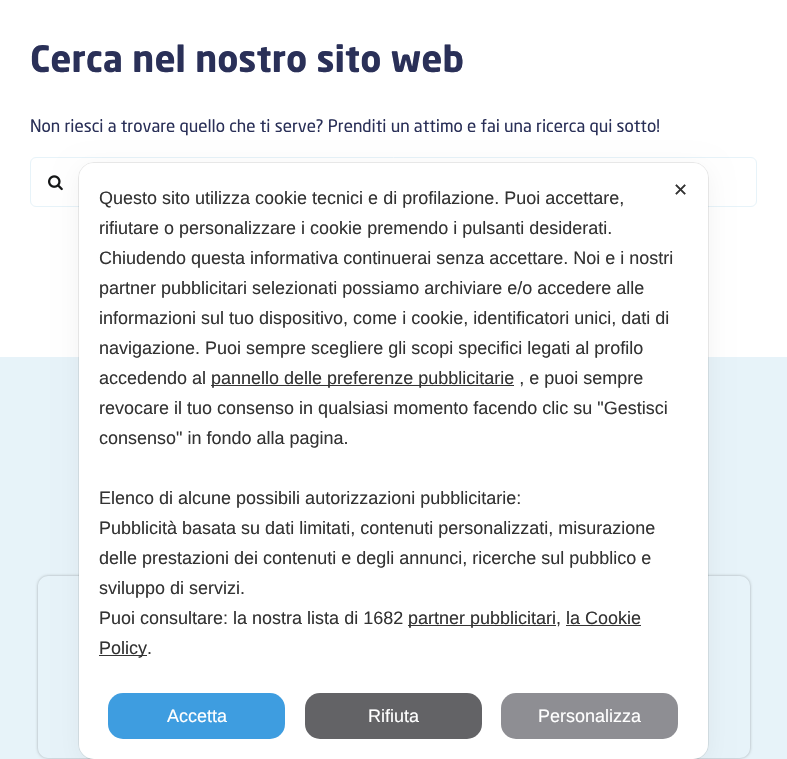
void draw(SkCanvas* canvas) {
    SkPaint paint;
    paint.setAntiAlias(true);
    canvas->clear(0xFFFFFFFF);
    SkFont font1(fontMgr->matchFamilyStyle("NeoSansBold", SkFontStyle::Bold()), 36);
    font1.setSubpixel(true);
    paint.setColor(0xFF2A3058);
    canvas->drawString("Cerca nel nostro sito web", 30, 72, font1, paint);
    SkFont font2(fontMgr->matchFamilyStyle("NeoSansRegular", SkFontStyle::Normal()), 17);
    font2.setSubpixel(true);
    canvas->drawString("Non riesci a trovare quello che ti serve? Prenditi un attimo e fai una ricerca qui sotto!", 30, 132, font2, paint);
    paint.setStyle(SkPaint::kStroke_Style);
    paint.setStrokeWidth(1);
    paint.setColor(0xFFE7F3F9);
    canvas->drawRoundRect(SkRect::MakeXYWH(30.5f, 157.5f, 726, 49), 5.5f, 5.5f, paint);
    canvas->drawImageRect(SkImages::DeferredFromEncodedData(SkData::MakeFromFileName("img1.png")), SkRect::MakeXYWH(48, 175, 15, 16), SkSamplingOptions());
    paint.setStyle(SkPaint::kFill_Style);
    canvas->drawRect(SkRect::MakeXYWH(0, 357, 787, 402), paint);
    canvas->save();
    canvas->clipPath(SkPathBuilder(SkPathFillType::kEvenOdd).moveTo(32, 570).lineTo(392, 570).lineTo(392, 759).lineTo(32, 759).close().moveTo(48, 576).lineTo(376, 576).cubicTo(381.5f, 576, 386, 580.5f, 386, 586).lineTo(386, 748).cubicTo(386, 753.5f, 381.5f, 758, 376, 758).lineTo(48, 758).cubicTo(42.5f, 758, 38, 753.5f, 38, 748).lineTo(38, 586).cubicTo(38, 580.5f, 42.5f, 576, 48, 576).close().detach(), true);
    paint.setColor(0x4D000000);
    paint.setMaskFilter(SkMaskFilter::MakeBlur(kNormal_SkBlurStyle, 1.5f));
    canvas->drawRoundRect(SkRect::MakeXYWH(38, 576, 348, 182), 10, 10, paint);
    paint.setMaskFilter(nullptr);
    canvas->restore();
    canvas->save();
    canvas->clipPath(SkPathBuilder(SkPathFillType::kEvenOdd).moveTo(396, 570).lineTo(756, 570).lineTo(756, 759).lineTo(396, 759).close().moveTo(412, 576).lineTo(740, 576).cubicTo(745.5f, 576, 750, 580.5f, 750, 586).lineTo(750, 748).cubicTo(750, 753.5f, 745.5f, 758, 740, 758).lineTo(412, 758).cubicTo(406.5f, 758, 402, 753.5f, 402, 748).lineTo(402, 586).cubicTo(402, 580.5f, 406.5f, 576, 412, 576).close().detach(), true);
    paint.setMaskFilter(SkMaskFilter::MakeBlur(kNormal_SkBlurStyle, 1.5f));
    canvas->drawRoundRect(SkRect::MakeXYWH(402, 576, 348, 182), 10, 10, paint);
    paint.setMaskFilter(nullptr);
    canvas->restore();
    paint.setStyle(SkPaint::kStroke_Style);
    paint.setColor(0x14000000);
    canvas->drawRoundRect(SkRect::MakeXYWH(78.5f, 162.5f, 630, 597), 15.5f, 15.5f, paint);
    paint.setStyle(SkPaint::kFill_Style);
    paint.setColor(0x0D000000);
    paint.setMaskFilter(SkMaskFilter::MakeBlur(kNormal_SkBlurStyle, 12));
    canvas->drawRoundRect(SkRect::MakeXYWH(79, 169, 629, 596), 15, 15, paint);
    paint.setMaskFilter(nullptr);
    paint.setColor(0xFFFFFFFF);
    canvas->drawRoundRect(SkRect::MakeXYWH(79, 163, 629, 596), 15, 15, paint);
    SkFont font3(fontMgr->matchFamilyStyle("Liberation Sans", SkFontStyle::Normal()), 18);
    font3.setSubpixel(true);
    paint.setColor(0xFF333333);
    canvas->drawString("Questo sito utilizza cookie tecnici e di profilazione. Puoi accettare,", 99, 204, font3, paint);
    canvas->drawString("rifiutare o personalizzare i cookie premendo i pulsanti desiderati.", 99, 234, font3, paint);
    canvas->drawString("Chiudendo questa informativa continuerai senza accettare. Noi e i nostri", 99, 264, font3, paint);
    canvas->drawString("partner pubblicitari selezionati possiamo archiviare e/o accedere alle", 99, 294, font3, paint);
    canvas->drawString("informazioni sul tuo dispositivo, come i cookie, identificatori unici, dati di", 99, 324, font3, paint);
    canvas->drawString("navigazione. Puoi sempre scegliere gli scopi specifici legati al profilo", 99, 354, font3, paint);
    canvas->drawString("accedendo al", 99, 384, font3, paint);
    canvas->drawRect(SkRect::MakeXYWH(211, 385, 303, 1), paint);
    canvas->drawString("pannello delle preferenze pubblicitarie , e puoi sempre", 211, 384, font3, paint);
    canvas->drawString("revocare il tuo consenso in qualsiasi momento facendo clic su \"Gestisci", 99, 414, font3, paint);
    canvas->drawString("consenso\" in fondo alla pagina.", 99, 444, font3, paint);
    canvas->drawString("Elenco di alcune possibili autorizzazioni pubblicitarie:", 99, 504, font3, paint);
    canvas->drawString("Pubblicità basata su dati limitati, contenuti personalizzati, misurazione", 99, 534, font3, paint);
    canvas->drawString("delle prestazioni dei contenuti e degli annunci, ricerche sul pubblico e", 99, 564, font3, paint);
    canvas->drawString("sviluppo di servizi.", 99, 594, font3, paint);
    canvas->drawString("Puoi consultare: la nostra lista di 1682", 99, 624, font3, paint);
    canvas->drawRect(SkRect::MakeXYWH(408, 625, 148, 1), paint);
    canvas->drawString("partner pubblicitari, la Cookie", 408, 624, font3, paint);
    canvas->drawRect(SkRect::MakeXYWH(99, 655, 48, 1), paint);
    canvas->drawString("Policy.", 99, 654, font3, paint);
    canvas->drawRect(SkRect::MakeXYWH(566, 625, 75, 1), paint);
    paint.setColor(0xFF3E9DE0);
    canvas->drawRoundRect(SkRect::MakeXYWH(108, 693, 177, 46), 15, 15, paint);
    paint.setColor(0xFFFFFFFF);
    canvas->drawString("Accetta", 167, 722, font3, paint);
    paint.setColor(0xFF636366);
    canvas->drawRoundRect(SkRect::MakeXYWH(305, 693, 177, 46), 15, 15, paint);
    paint.setColor(0xFFFFFFFF);
    canvas->drawString("Rifiuta", 368, 722, font3, paint);
    paint.setColor(0xFF8E8E93);
    canvas->drawRoundRect(SkRect::MakeXYWH(501, 693, 177, 46), 15, 15, paint);
    paint.setColor(0xFFFFFFFF);
    canvas->drawString("Personalizza", 538, 722, font3, paint);
    SkFont font4(fontMgr->matchFamilyStyle("DejaVu Sans", SkFontStyle::Normal()), 18);
    font4.setSubpixel(true);
    paint.setColor(0xFF333333);
    canvas->drawString("✕", 673, 196, font4, paint);
}
